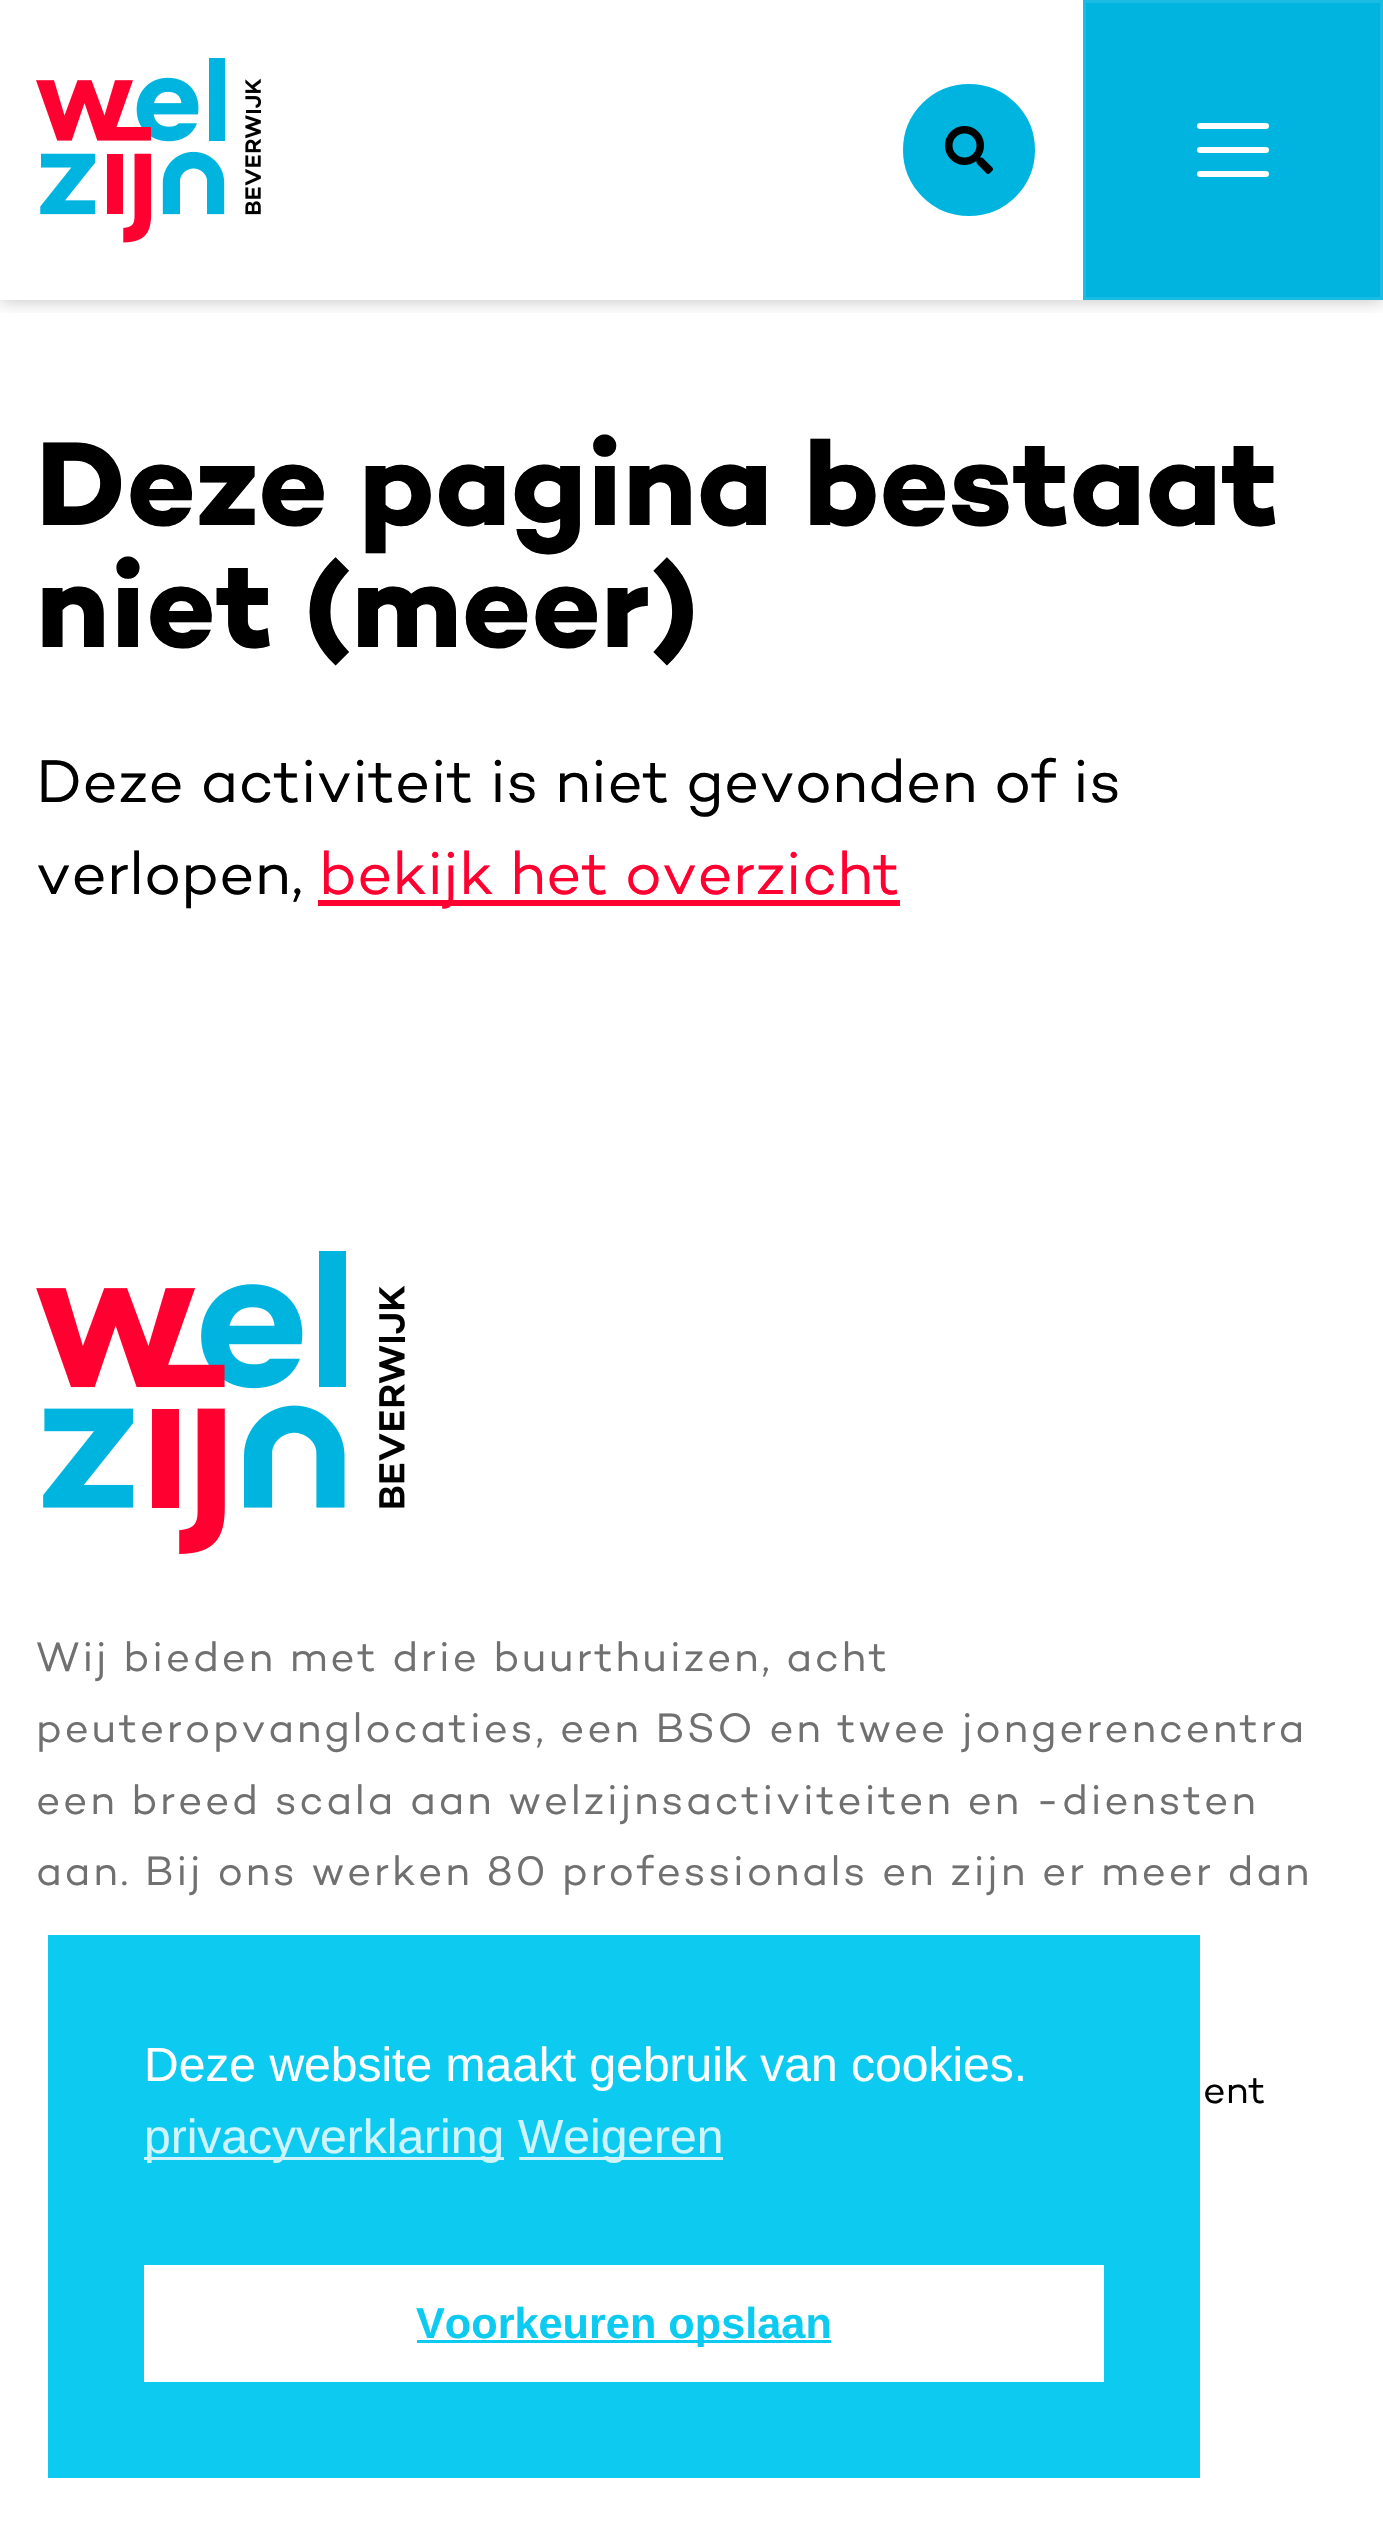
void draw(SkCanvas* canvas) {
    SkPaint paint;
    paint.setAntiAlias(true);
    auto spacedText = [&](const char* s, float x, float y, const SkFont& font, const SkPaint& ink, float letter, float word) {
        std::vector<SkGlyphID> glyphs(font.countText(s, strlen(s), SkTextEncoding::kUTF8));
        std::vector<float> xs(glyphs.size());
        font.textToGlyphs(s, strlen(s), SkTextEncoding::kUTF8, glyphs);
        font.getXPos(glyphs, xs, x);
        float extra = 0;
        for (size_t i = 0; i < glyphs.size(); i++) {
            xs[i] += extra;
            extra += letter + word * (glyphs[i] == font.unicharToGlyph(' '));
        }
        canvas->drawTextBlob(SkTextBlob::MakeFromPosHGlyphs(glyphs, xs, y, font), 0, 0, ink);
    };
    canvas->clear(0xFFFFFFFF);
    canvas->save();
    canvas->clipRect(SkRect::MakeXYWH(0, 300, 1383, 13));
    paint.setColor(0x40000000);
    paint.setMaskFilter(SkMaskFilter::MakeBlur(kNormal_SkBlurStyle, 9));
    canvas->drawRect(SkRect::MakeXYWH(0, 0, 1383, 300), paint);
    paint.setMaskFilter(nullptr);
    canvas->restore();
    canvas->drawImageRect(SkImages::DeferredFromEncodedData(SkData::MakeFromFileName("img1.png")), SkRect::MakeXYWH(36, 58, 225, 185), SkSamplingOptions());
    paint.setColor(0xFF00B4E0);
    canvas->drawCircle(969, 150, 63, paint);
    paint.setStyle(SkPaint::kStroke_Style);
    paint.setStrokeWidth(6);
    canvas->drawCircle(969, 150, 63, paint);
    canvas->drawImageRect(SkImages::DeferredFromEncodedData(SkData::MakeFromFileName("img2.png")), SkRect::MakeXYWH(945, 126, 48, 48), SkSamplingOptions());
    paint.setStyle(SkPaint::kFill_Style);
    canvas->drawRect(SkRect::MakeXYWH(1084.5f, 1.5f, 297, 297), paint);
    paint.setStyle(SkPaint::kStroke_Style);
    paint.setStrokeWidth(3);
    paint.setColor(0xFF1ABCE3);
    canvas->drawRect(SkRect::MakeXYWH(1084.5f, 1.5f, 297, 297), paint);
    paint.setStrokeWidth(6);
    paint.setStrokeCap(SkPaint::kRound_Cap);
    paint.setColor(0xFFFFFFFF);
    canvas->drawPath(SkPathBuilder().moveTo(1200, 126).lineTo(1266, 126).moveTo(1200, 150).lineTo(1266, 150).moveTo(1200, 174).lineTo(1266, 174).detach(), paint);
    SkFont font1(fontMgr->matchFamilyStyle("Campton", SkFontStyle::Bold()), 121.5f);
    font1.setSubpixel(true);
    paint.setStyle(SkPaint::kFill_Style);
    paint.setColor(0xFF000000);
    canvas->drawString("Deze pagina bestaat", 36, 525, font1, paint);
    canvas->drawString("niet (meer)", 36, 647, font1, paint);
    SkFont font2(fontMgr->matchFamilyStyle("Campton", SkFontStyle::Normal()), 61.3f);
    font2.setSubpixel(true);
    canvas->drawString("Deze activiteit is niet gevonden of is", 36, 802, font2, paint);
    canvas->drawString("verlopen,", 36, 894, font2, paint);
    paint.setColor(0xFFFF0030);
    canvas->drawRect(SkRect::MakeXYWH(318, 900, 582, 6), paint);
    canvas->drawString("bekijk het overzicht", 319, 894, font2, paint);
    canvas->drawImageRect(SkImages::DeferredFromEncodedData(SkData::MakeFromFileName("img3.png")), SkRect::MakeXYWH(36, 1251, 369, 303), SkSamplingOptions());
    SkFont font3(fontMgr->matchFamilyStyle("Campton", SkFontStyle::Normal()), 42);
    font3.setSubpixel(true);
    paint.setColor(0xFF707070);
    spacedText("Wij bieden met drie buurthuizen, acht", 36, 1671, font3, paint, 2.62f, 0);
    spacedText("peuteropvanglocaties, een BSO en twee jongerencentra", 36, 1742, font3, paint, 2.62f, 0);
    spacedText("een breed scala aan welzijnsactiviteiten en -diensten", 36, 1814, font3, paint, 2.62f, 0);
    spacedText("aan. Bij ons werken 80 professionals en zijn er meer dan", 36, 1885, font3, paint, 2.62f, 0);
    SkFont font4(fontMgr->matchFamilyStyle("Campton", SkFontStyle::Normal()), 39);
    font4.setSubpixel(true);
    paint.setColor(0xFF000000);
    canvas->drawString("ent", 1203, 2103, font4, paint);
    paint.setColor(0xFF0DCAF0);
    canvas->drawRect(SkRect::MakeXYWH(48, 1935, 1152, 543), paint);
    SkFont font5(fontMgr->matchFamilyStyle("Liberation Sans", SkFontStyle::Normal()), 48);
    font5.setSubpixel(true);
    paint.setColor(0xFFFFFFFF);
    canvas->drawString("Deze website maakt gebruik van cookies.", 144, 2081, font5, paint);
    paint.setColor(0xFFCFF4FC);
    canvas->drawRect(SkRect::MakeXYWH(144, 2157, 360, 3), paint);
    canvas->drawString("privacyverklaring", 144, 2153, font5, paint);
    canvas->drawRect(SkRect::MakeXYWH(519, 2157, 204, 3), paint);
    canvas->drawString("Weigeren", 518, 2153, font5, paint);
    paint.setColor(0xFFFFFFFF);
    canvas->drawRect(SkRect::MakeXYWH(144, 2265, 960, 117), paint);
    paint.setColor(0xFF0DCAF0);
    canvas->drawRect(SkRect::MakeXYWH(417, 2340, 414, 3), paint);
    SkFont font6(fontMgr->matchFamilyStyle("Liberation Sans", SkFontStyle::Bold()), 43.25f);
    font6.setSubpixel(true);
    canvas->drawString("Voorkeuren opslaan", 416, 2338, font6, paint);
}
